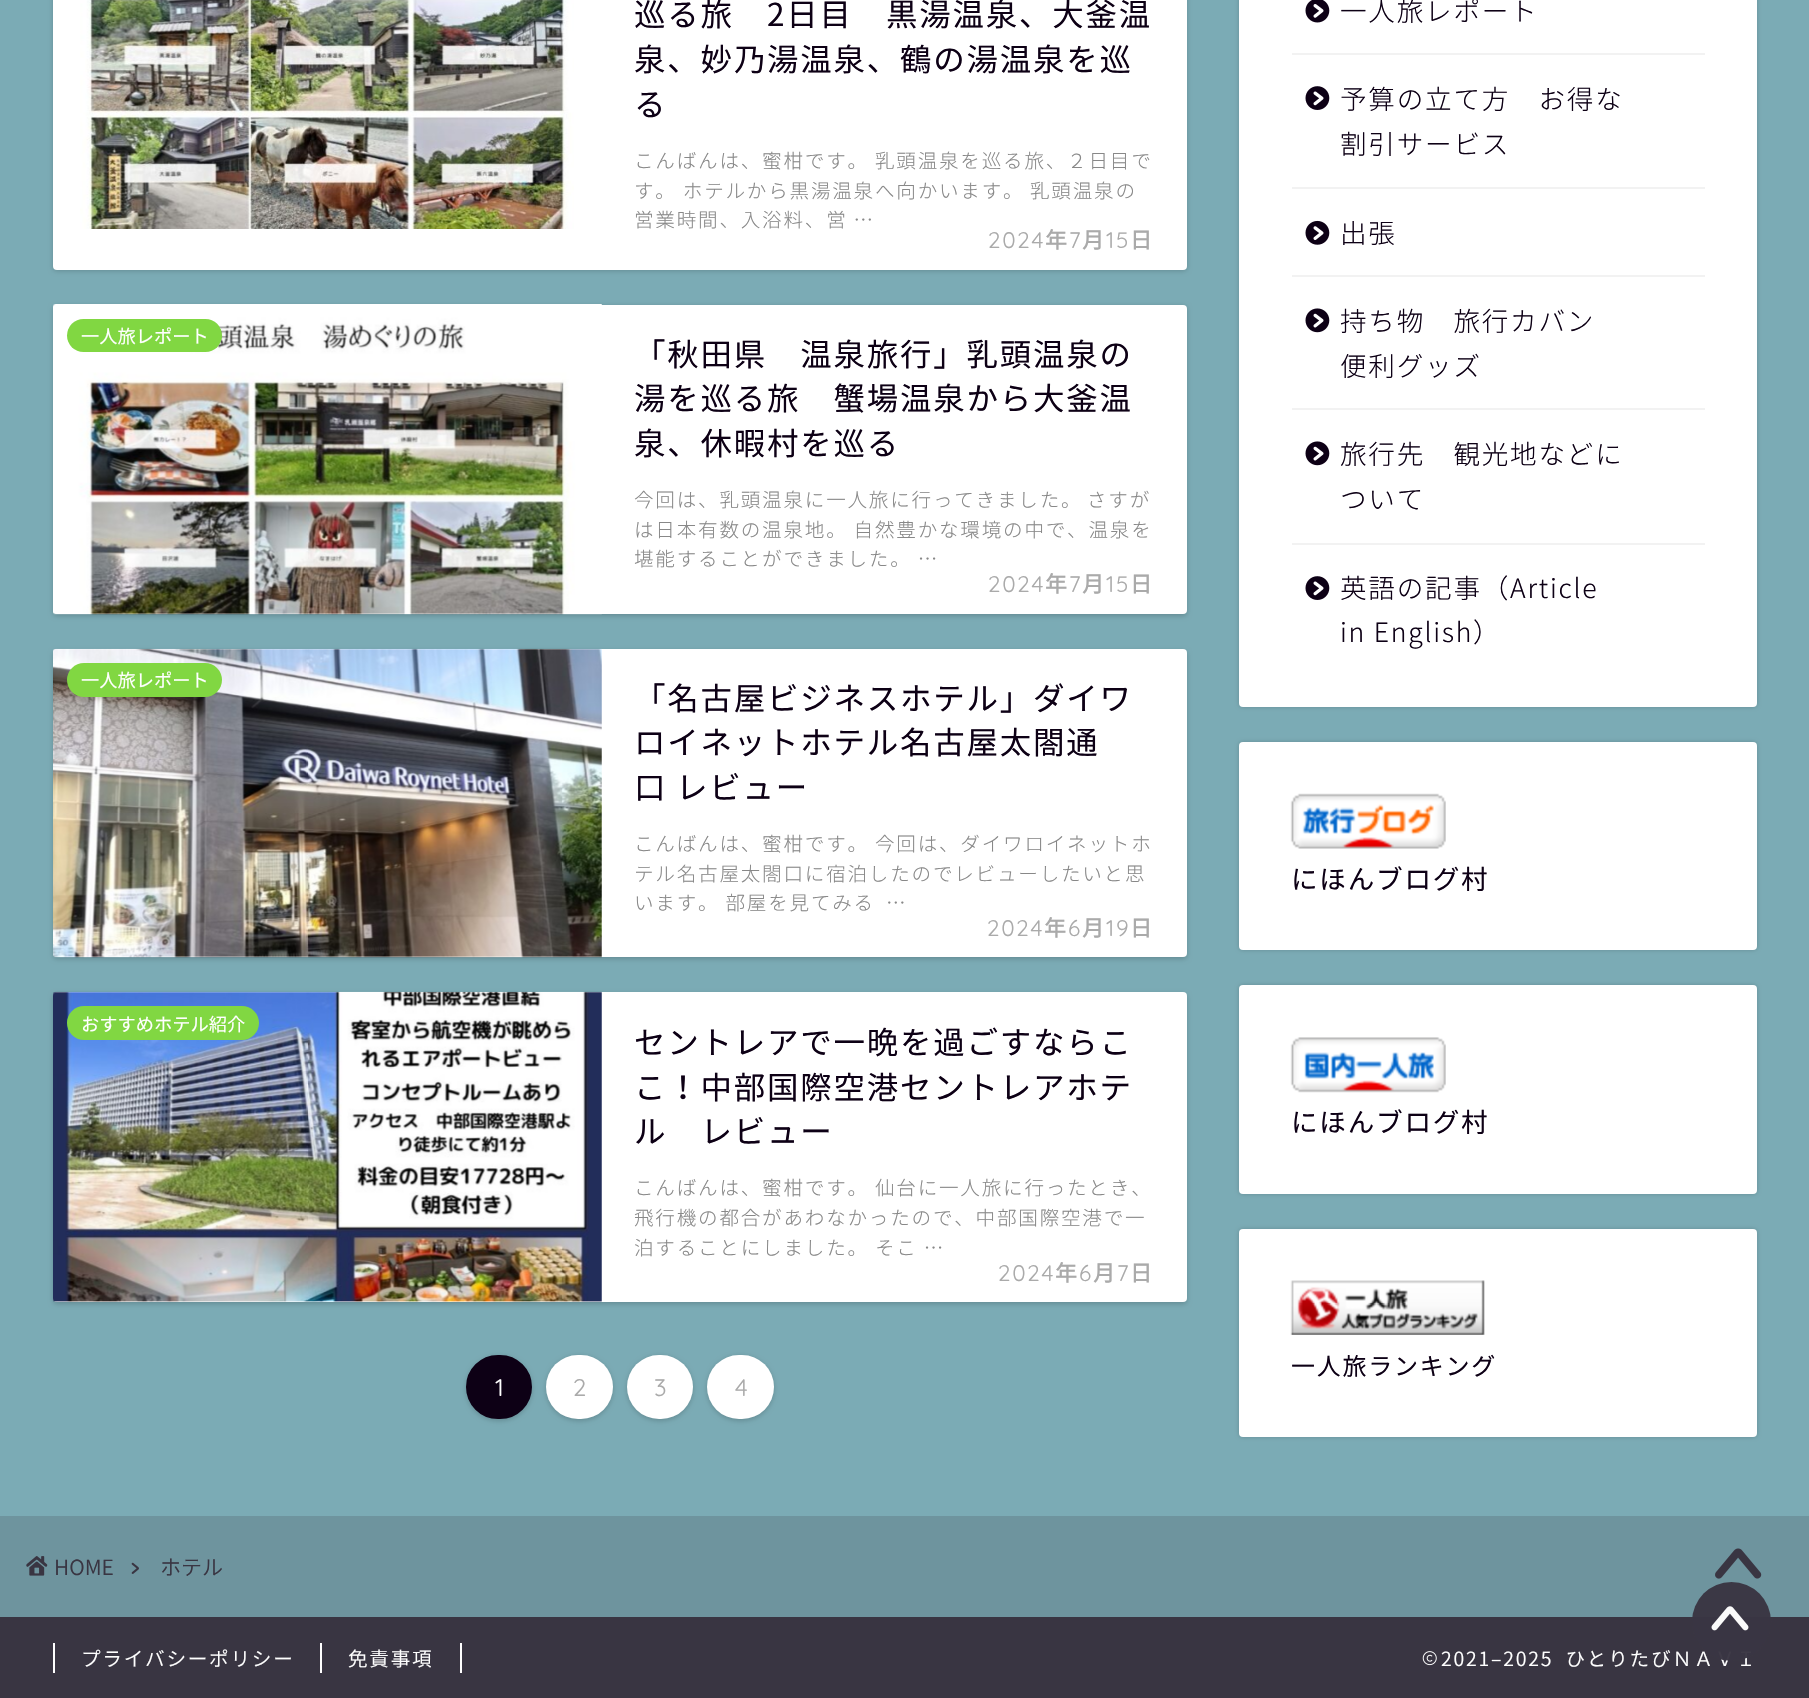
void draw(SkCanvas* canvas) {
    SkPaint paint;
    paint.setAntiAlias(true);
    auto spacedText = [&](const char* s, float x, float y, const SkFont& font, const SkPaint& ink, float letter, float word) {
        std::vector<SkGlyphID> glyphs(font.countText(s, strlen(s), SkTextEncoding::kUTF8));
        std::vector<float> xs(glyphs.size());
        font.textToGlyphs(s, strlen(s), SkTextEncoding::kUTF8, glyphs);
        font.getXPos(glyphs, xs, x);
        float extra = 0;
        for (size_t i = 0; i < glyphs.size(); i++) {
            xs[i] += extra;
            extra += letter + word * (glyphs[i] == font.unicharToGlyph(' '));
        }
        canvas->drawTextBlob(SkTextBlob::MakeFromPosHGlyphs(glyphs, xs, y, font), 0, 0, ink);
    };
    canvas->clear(0xFF7BABB5);
    paint.setColor(0x2E000000);
    paint.setMaskFilter(SkMaskFilter::MakeBlur(kNormal_SkBlurStyle, 2.5f));
    canvas->drawRoundRect(SkRect::MakeXYWH(53, -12, 1134, 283), 4, 4, paint);
    paint.setMaskFilter(nullptr);
    paint.setColor(0xFFFFFFFF);
    canvas->drawRoundRect(SkRect::MakeXYWH(53, -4, 1134, 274), 4, 4, paint);
    canvas->drawImageRect(SkImages::DeferredFromEncodedData(SkData::MakeFromFileName("img1.png")), SkRect::MakeXYWH(80, 0, 494, 229), SkSamplingOptions());
    SkFont font1(fontMgr->matchFamilyStyle("Noto Sans JP", SkFontStyle::Normal()), 31.5f);
    font1.setSubpixel(true);
    paint.setColor(0xFF0D0015);
    spacedText("巡る旅　2日目　黒湯温泉、大釜温", 634, 26, font1, paint, 1.75f, 0);
    spacedText("泉、妙乃湯温泉、鶴の湯温泉を巡", 634, 71, font1, paint, 1.75f, 0);
    spacedText("る", 634, 116, font1, paint, 1.75f, 0);
    SkFont font2(fontMgr->matchFamilyStyle("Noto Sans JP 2", SkFontStyle(300, SkFontStyle::kNormal_Width, SkFontStyle::kUpright_Slant)), 19.6f);
    font2.setSubpixel(true);
    paint.setColor(0xFF888888);
    spacedText("こんばんは、蜜柑です。 乳頭温泉を巡る旅、２日目で", 634, 168, font2, paint, 1.75f, 0);
    spacedText("す。 ホテルから黒湯温泉へ向かいます。", 634, 198, font2, paint, 1.75f, 0);
    spacedText("乳頭温泉の", 1030, 198, font2, paint, 1.75f, 0);
    spacedText("営業時間、入浴料、営 …", 634, 227, font2, paint, 1.75f, 0);
    SkFont font3(fontMgr->matchFamilyStyle("Quicksand", SkFontStyle(300, SkFontStyle::kNormal_Width, SkFontStyle::kUpright_Slant)), 22.5f);
    font3.setSubpixel(true);
    paint.setColor(0xFFAAAAAA);
    spacedText("2024", 988, 248, font3, paint, 1.75f, 0);
    SkFont font4(fontMgr->matchFamilyStyle("Noto Sans JP", SkFontStyle(500, SkFontStyle::kNormal_Width, SkFontStyle::kUpright_Slant)), 22.5f);
    font4.setSubpixel(true);
    spacedText("年", 1045, 248, font4, paint, 1.75f, 0);
    spacedText("7", 1069, 248, font3, paint, 1.75f, 0);
    spacedText("月", 1082, 248, font4, paint, 1.75f, 0);
    spacedText("15", 1106, 248, font3, paint, 1.75f, 0);
    spacedText("日", 1130, 248, font4, paint, 1.75f, 0);
    paint.setColor(0x2E000000);
    paint.setMaskFilter(SkMaskFilter::MakeBlur(kNormal_SkBlurStyle, 2.5f));
    canvas->drawRoundRect(SkRect::MakeXYWH(53, 306, 1134, 310), 4, 4, paint);
    paint.setMaskFilter(nullptr);
    paint.setColor(0xFFFFFFFF);
    canvas->drawRoundRect(SkRect::MakeXYWH(53, 305, 1134, 309), 4, 4, paint);
    canvas->drawImageRect(SkImages::DeferredFromEncodedData(SkData::MakeFromFileName("img2.png")), SkRect::MakeXYWH(53, 304, 549, 311), SkSamplingOptions());
    paint.setColor(0xFF81D742);
    canvas->drawRoundRect(SkRect::MakeXYWH(67, 319, 155, 33), 16.5f, 16.5f, paint);
    SkFont font5(fontMgr->matchFamilyStyle("Noto Sans JP", SkFontStyle::Normal()), 18.25f);
    font5.setSubpixel(true);
    paint.setColor(0xFFFFFFFF);
    canvas->drawString("一人旅レポート", 81, 343, font5, paint);
    paint.setColor(0xFF0D0015);
    spacedText("「秋田県　温泉旅行」乳頭温泉の", 634, 366, font1, paint, 1.75f, 0);
    spacedText("湯を巡る旅　蟹場温泉から大釜温", 634, 410, font1, paint, 1.75f, 0);
    spacedText("泉、休暇村を巡る", 634, 455, font1, paint, 1.75f, 0);
    paint.setColor(0xFF888888);
    spacedText("今回は、乳頭温泉に一人旅に行ってきました。", 634, 507, font2, paint, 1.75f, 0);
    spacedText("さすが", 1087, 507, font2, paint, 1.75f, 0);
    spacedText("は日本有数の温泉地。 自然豊かな環境の中で、温泉を", 634, 537, font2, paint, 1.75f, 0);
    spacedText("堪能することができました。 …", 634, 566, font2, paint, 1.75f, 0);
    paint.setColor(0xFFAAAAAA);
    spacedText("2024", 988, 592, font3, paint, 1.75f, 0);
    spacedText("年", 1045, 592, font4, paint, 1.75f, 0);
    spacedText("7", 1069, 592, font3, paint, 1.75f, 0);
    spacedText("月", 1082, 592, font4, paint, 1.75f, 0);
    spacedText("15", 1106, 592, font3, paint, 1.75f, 0);
    spacedText("日", 1130, 592, font4, paint, 1.75f, 0);
    paint.setColor(0x2E000000);
    paint.setMaskFilter(SkMaskFilter::MakeBlur(kNormal_SkBlurStyle, 2.5f));
    canvas->drawRoundRect(SkRect::MakeXYWH(53, 651, 1134, 308), 4, 4, paint);
    paint.setMaskFilter(nullptr);
    paint.setColor(0xFFFFFFFF);
    canvas->drawRoundRect(SkRect::MakeXYWH(53, 649, 1134, 308), 4, 4, paint);
    canvas->drawImageRect(SkImages::DeferredFromEncodedData(SkData::MakeFromFileName("img3.png")), SkRect::MakeXYWH(53, 648, 549, 310), SkSamplingOptions());
    paint.setColor(0xFF81D742);
    canvas->drawRoundRect(SkRect::MakeXYWH(67, 663, 155, 34), 17, 17, paint);
    paint.setColor(0xFFFFFFFF);
    canvas->drawString("一人旅レポート", 81, 687, font5, paint);
    paint.setColor(0xFF0D0015);
    spacedText("「名古屋ビジネスホテル」ダイワ", 634, 710, font1, paint, 1.75f, 0);
    spacedText("ロイネットホテル名古屋太閤通", 634, 754, font1, paint, 1.75f, 0);
    spacedText("口 レビュー", 634, 799, font1, paint, 1.75f, 0);
    paint.setColor(0xFF888888);
    spacedText("こんばんは、蜜柑です。 今回は、ダイワロイネットホ", 634, 851, font2, paint, 1.75f, 0);
    spacedText("テル名古屋太閤口に宿泊したのでレビューしたいと思", 634, 881, font2, paint, 1.75f, 0);
    spacedText("います。 部屋を見てみる", 634, 910, font2, paint, 1.75f, 0);
    spacedText("…", 886, 910, font2, paint, 1.75f, 0);
    paint.setColor(0xFFAAAAAA);
    spacedText("2024", 987, 936, font3, paint, 1.75f, 0);
    spacedText("年", 1044, 936, font4, paint, 1.75f, 0);
    spacedText("6", 1068, 936, font3, paint, 1.75f, 0);
    spacedText("月", 1082, 936, font4, paint, 1.75f, 0);
    spacedText("19", 1106, 936, font3, paint, 1.75f, 0);
    spacedText("日", 1130, 936, font4, paint, 1.75f, 0);
    paint.setColor(0x2E000000);
    paint.setMaskFilter(SkMaskFilter::MakeBlur(kNormal_SkBlurStyle, 2.5f));
    canvas->drawRoundRect(SkRect::MakeXYWH(53, 994, 1134, 310), 4, 4, paint);
    paint.setMaskFilter(nullptr);
    paint.setColor(0xFFFFFFFF);
    canvas->drawRoundRect(SkRect::MakeXYWH(53, 992, 1134, 310), 4, 4, paint);
    canvas->drawImageRect(SkImages::DeferredFromEncodedData(SkData::MakeFromFileName("img4.png")), SkRect::MakeXYWH(53, 991, 549, 311), SkSamplingOptions());
    paint.setColor(0xFF81D742);
    canvas->drawRoundRect(SkRect::MakeXYWH(67, 1006, 192, 34), 17, 17, paint);
    paint.setColor(0xFFFFFFFF);
    canvas->drawString("おすすめホテル紹介", 81, 1031, font5, paint);
    paint.setColor(0xFF0D0015);
    spacedText("セントレアで一晩を過ごすならこ", 634, 1054, font1, paint, 1.75f, 0);
    spacedText("こ！中部国際空港セントレアホテ", 634, 1099, font1, paint, 1.75f, 0);
    spacedText("ル　レビュー", 634, 1143, font1, paint, 1.75f, 0);
    paint.setColor(0xFF888888);
    spacedText("こんばんは、蜜柑です。 仙台に一人旅に行ったとき、", 634, 1195, font2, paint, 1.75f, 0);
    spacedText("飛行機の都合があわなかったので、中部国際空港で一", 634, 1225, font2, paint, 1.75f, 0);
    spacedText("泊することにしました。 そこ …", 634, 1255, font2, paint, 1.75f, 0);
    paint.setColor(0xFFAAAAAA);
    spacedText("2024", 998, 1281, font3, paint, 1.75f, 0);
    spacedText("年", 1055, 1281, font4, paint, 1.75f, 0);
    spacedText("6", 1079, 1281, font3, paint, 1.75f, 0);
    spacedText("月", 1093, 1281, font4, paint, 1.75f, 0);
    spacedText("7", 1117, 1281, font3, paint, 1.75f, 0);
    spacedText("日", 1130, 1281, font4, paint, 1.75f, 0);
    paint.setColor(0x2E000000);
    paint.setMaskFilter(SkMaskFilter::MakeBlur(kNormal_SkBlurStyle, 2.5f));
    canvas->drawRoundRect(SkRect::MakeXYWH(466, 1356, 66, 65), 32.5f, 32.5f, paint);
    paint.setMaskFilter(nullptr);
    paint.setColor(0xFF0D0015);
    canvas->drawRoundRect(SkRect::MakeXYWH(467, 1356, 64, 62), 31, 31, paint);
    paint.setStyle(SkPaint::kStroke_Style);
    paint.setStrokeWidth(2);
    canvas->drawRoundRect(SkRect::MakeXYWH(467, 1356, 64, 62), 31, 31, paint);
    SkFont font6(fontMgr->matchFamilyStyle("Quicksand", SkFontStyle(300, SkFontStyle::kNormal_Width, SkFontStyle::kUpright_Slant)), 24);
    font6.setSubpixel(true);
    paint.setStyle(SkPaint::kFill_Style);
    paint.setColor(0xFFFFFFFF);
    spacedText("1", 495, 1396, font6, paint, 1.75f, 0);
    paint.setColor(0x2E000000);
    paint.setMaskFilter(SkMaskFilter::MakeBlur(kNormal_SkBlurStyle, 2.5f));
    canvas->drawRoundRect(SkRect::MakeXYWH(546, 1356, 67, 65), 32.5f, 32.5f, paint);
    paint.setMaskFilter(nullptr);
    paint.setColor(0xFFFFFFFF);
    canvas->drawRoundRect(SkRect::MakeXYWH(546, 1355, 67, 64), 32, 32, paint);
    paint.setColor(0xFFAAAAAA);
    spacedText("2", 573, 1396, font6, paint, 1.75f, 0);
    paint.setColor(0x2E000000);
    paint.setMaskFilter(SkMaskFilter::MakeBlur(kNormal_SkBlurStyle, 2.5f));
    canvas->drawRoundRect(SkRect::MakeXYWH(627, 1356, 66, 65), 32.5f, 32.5f, paint);
    paint.setMaskFilter(nullptr);
    paint.setColor(0xFFFFFFFF);
    canvas->drawRoundRect(SkRect::MakeXYWH(627, 1355, 66, 64), 32, 32, paint);
    paint.setColor(0xFFAAAAAA);
    spacedText("3", 654, 1396, font6, paint, 1.75f, 0);
    paint.setColor(0x2E000000);
    paint.setMaskFilter(SkMaskFilter::MakeBlur(kNormal_SkBlurStyle, 2.5f));
    canvas->drawRoundRect(SkRect::MakeXYWH(707, 1356, 67, 65), 32.5f, 32.5f, paint);
    paint.setMaskFilter(nullptr);
    paint.setColor(0xFFFFFFFF);
    canvas->drawRoundRect(SkRect::MakeXYWH(707, 1355, 67, 64), 32, 32, paint);
    paint.setColor(0xFFAAAAAA);
    spacedText("4", 735, 1396, font6, paint, 1.75f, 0);
    paint.setColor(0x2E000000);
    paint.setMaskFilter(SkMaskFilter::MakeBlur(kNormal_SkBlurStyle, 2));
    canvas->drawRoundRect(SkRect::MakeXYWH(1239, -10, 518, 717), 4, 4, paint);
    paint.setMaskFilter(nullptr);
    paint.setColor(0xFFFFFFFF);
    canvas->drawRoundRect(SkRect::MakeXYWH(1239, -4, 518, 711), 4, 4, paint);
    paint.setColor(0xFFF2F2F2);
    canvas->drawRect(SkRect::MakeXYWH(1292, 53, 413, 2), paint);
    canvas->drawImageRect(SkImages::DeferredFromEncodedData(SkData::MakeFromFileName("img5.png")), SkRect::MakeXYWH(1305, 0, 25, 23), SkSamplingOptions());
    SkFont font7(fontMgr->matchFamilyStyle("Noto Sans JP 2", SkFontStyle(300, SkFontStyle::kNormal_Width, SkFontStyle::kUpright_Slant)), 26.6f);
    font7.setSubpixel(true);
    paint.setColor(0xFF0D0015);
    spacedText("一人旅レポート", 1340, 21, font7, paint, 1.75f, 0);
    paint.setColor(0xFFF2F2F2);
    canvas->drawRect(SkRect::MakeXYWH(1292, 187, 413, 2), paint);
    canvas->drawImageRect(SkImages::DeferredFromEncodedData(SkData::MakeFromFileName("img6.png")), SkRect::MakeXYWH(1305, 86, 25, 24), SkSamplingOptions());
    paint.setColor(0xFF0D0015);
    spacedText("予算の立て方　お得な", 1340, 109, font7, paint, 1.75f, 0);
    spacedText("割引サービス", 1340, 154, font7, paint, 1.75f, 0);
    paint.setColor(0xFFF2F2F2);
    canvas->drawRect(SkRect::MakeXYWH(1292, 275, 413, 2), paint);
    canvas->drawImageRect(SkImages::DeferredFromEncodedData(SkData::MakeFromFileName("img7.png")), SkRect::MakeXYWH(1305, 220, 25, 25), SkSamplingOptions());
    paint.setColor(0xFF0D0015);
    spacedText("出張", 1340, 243, font7, paint, 1.75f, 0);
    paint.setColor(0xFFF2F2F2);
    canvas->drawRect(SkRect::MakeXYWH(1292, 408, 413, 2), paint);
    canvas->drawImageRect(SkImages::DeferredFromEncodedData(SkData::MakeFromFileName("img8.png")), SkRect::MakeXYWH(1305, 308, 25, 25), SkSamplingOptions());
    paint.setColor(0xFF0D0015);
    spacedText("持ち物　旅行カバン", 1340, 331, font7, paint, 1.75f, 0);
    spacedText("便利グッズ", 1340, 376, font7, paint, 1.75f, 0);
    paint.setColor(0xFFF2F2F2);
    canvas->drawRect(SkRect::MakeXYWH(1292, 543, 413, 2), paint);
    canvas->drawImageRect(SkImages::DeferredFromEncodedData(SkData::MakeFromFileName("img8.png")), SkRect::MakeXYWH(1305, 441, 25, 25), SkSamplingOptions());
    paint.setColor(0xFF0D0015);
    spacedText("旅行先　観光地などに", 1340, 464, font7, paint, 1.75f, 0);
    spacedText("ついて", 1340, 509, font7, paint, 1.75f, 0);
    canvas->drawImageRect(SkImages::DeferredFromEncodedData(SkData::MakeFromFileName("img6.png")), SkRect::MakeXYWH(1305, 576, 25, 24), SkSamplingOptions());
    spacedText("英語の記事（Article", 1340, 598, font7, paint, 1.75f, 0);
    spacedText("in English）", 1340, 642, font7, paint, 1.75f, 0);
    paint.setColor(0x2E000000);
    paint.setMaskFilter(SkMaskFilter::MakeBlur(kNormal_SkBlurStyle, 2));
    canvas->drawRoundRect(SkRect::MakeXYWH(1239, 742, 518, 208), 4, 4, paint);
    paint.setMaskFilter(nullptr);
    paint.setColor(0xFFFFFFFF);
    canvas->drawRoundRect(SkRect::MakeXYWH(1239, 742, 518, 208), 4, 4, paint);
    canvas->drawImageRect(SkImages::DeferredFromEncodedData(SkData::MakeFromFileName("img9.png")), SkRect::MakeXYWH(1290, 793, 156, 56), SkSamplingOptions());
    SkFont font8(fontMgr->matchFamilyStyle("Noto Sans JP", SkFontStyle::Normal()), 26.6f);
    font8.setSubpixel(true);
    paint.setColor(0xFF0D0015);
    spacedText("にほんブログ村", 1291, 889, font8, paint, 1.75f, 0);
    paint.setColor(0x2E000000);
    paint.setMaskFilter(SkMaskFilter::MakeBlur(kNormal_SkBlurStyle, 2));
    canvas->drawRoundRect(SkRect::MakeXYWH(1239, 985, 518, 209), 4, 4, paint);
    paint.setMaskFilter(nullptr);
    paint.setColor(0xFFFFFFFF);
    canvas->drawRoundRect(SkRect::MakeXYWH(1239, 985, 518, 209), 4, 4, paint);
    canvas->drawImageRect(SkImages::DeferredFromEncodedData(SkData::MakeFromFileName("img10.png")), SkRect::MakeXYWH(1290, 1037, 156, 56), SkSamplingOptions());
    paint.setColor(0xFF0D0015);
    spacedText("にほんブログ村", 1291, 1132, font8, paint, 1.75f, 0);
    paint.setColor(0x2E000000);
    paint.setMaskFilter(SkMaskFilter::MakeBlur(kNormal_SkBlurStyle, 2));
    canvas->drawRoundRect(SkRect::MakeXYWH(1239, 1229, 518, 208), 4, 4, paint);
    paint.setMaskFilter(nullptr);
    paint.setColor(0xFFFFFFFF);
    canvas->drawRoundRect(SkRect::MakeXYWH(1239, 1229, 518, 208), 4, 4, paint);
    canvas->drawImageRect(SkImages::DeferredFromEncodedData(SkData::MakeFromFileName("img11.png")), SkRect::MakeXYWH(1290, 1280, 195, 55), SkSamplingOptions());
    SkFont font9(fontMgr->matchFamilyStyle("Noto Sans JP", SkFontStyle::Normal()), 24);
    font9.setSubpixel(true);
    paint.setColor(0xFF0D0015);
    spacedText("一人旅ランキング", 1291, 1375, font9, paint, 1.75f, 0);
    paint.setColor(0xFF6E949E);
    canvas->drawRect(SkRect::MakeXYWH(0, 1516, 1809, 101), paint);
    canvas->drawImageRect(SkImages::DeferredFromEncodedData(SkData::MakeFromFileName("img12.png")), SkRect::MakeXYWH(26, 1556, 22, 20), SkSamplingOptions());
    SkFont font10(fontMgr->matchFamilyStyle("Noto Sans JP", SkFontStyle(300, SkFontStyle::kNormal_Width, SkFontStyle::kUpright_Slant)), 21);
    font10.setSubpixel(true);
    paint.setColor(0xFF393542);
    canvas->drawString("HOME", 54, 1575, font10, paint);
    canvas->drawImageRect(SkImages::DeferredFromEncodedData(SkData::MakeFromFileName("img13.png")), SkRect::MakeXYWH(131, 1562, 8, 12), SkSamplingOptions());
    canvas->drawString("ホテル", 160, 1575, font10, paint);
    canvas->drawImageRect(SkImages::DeferredFromEncodedData(SkData::MakeFromFileName("img14.png")), SkRect::MakeXYWH(1715, 1548, 47, 31), SkSamplingOptions());
    canvas->drawRect(SkRect::MakeXYWH(0, 1617, 1809, 81), paint);
    paint.setColor(0xFFFFFFFF);
    canvas->drawRect(SkRect::MakeXYWH(320, 1643, 2, 30), paint);
    canvas->drawRect(SkRect::MakeXYWH(53, 1643, 2, 30), paint);
    SkFont font11(fontMgr->matchFamilyStyle("Noto Sans JP", SkFontStyle(300, SkFontStyle::kNormal_Width, SkFontStyle::kUpright_Slant)), 19.6f);
    font11.setSubpixel(true);
    spacedText("プライバシーポリシー", 81, 1666, font11, paint, 1.75f, 0);
    canvas->drawRect(SkRect::MakeXYWH(460, 1643, 2, 30), paint);
    spacedText("免責事項", 348, 1666, font11, paint, 1.75f, 0);
    canvas->drawImageRect(SkImages::DeferredFromEncodedData(SkData::MakeFromFileName("img15.png")), SkRect::MakeXYWH(1422, 1651, 15, 15), SkSamplingOptions());
    spacedText("2021–2025  ひとりたびＮＡＶＩ", 1441, 1666, font11, paint, 1.75f, 0);
    paint.setColor(0xF7393542);
    canvas->drawCircle(1731.5f, 1621.5f, 39.5f, paint);
    canvas->drawImageRect(SkImages::DeferredFromEncodedData(SkData::MakeFromFileName("img16.png")), SkRect::MakeXYWH(1711, 1606, 38, 25), SkSamplingOptions());
}
